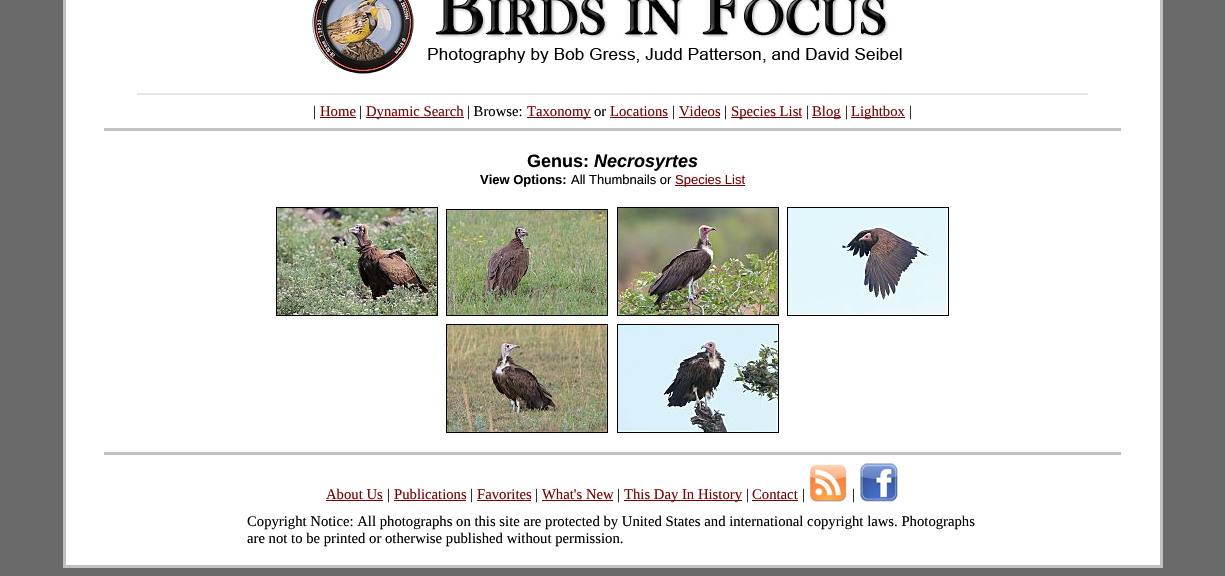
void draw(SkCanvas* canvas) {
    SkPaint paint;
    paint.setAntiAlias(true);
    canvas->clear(0xFF6A6A6A);
    paint.setColor(0xFFFFFFFF);
    canvas->drawRect(SkRect::MakeXYWH(66, 0, 1094, 565), paint);
    paint.setColor(0xFFC0C0C0);
    canvas->drawRect(SkRect::MakeXYWH(1160, 0, 3, 568), paint);
    canvas->drawRect(SkRect::MakeXYWH(63, 565, 1100, 3), paint);
    canvas->drawRect(SkRect::MakeXYWH(63, 0, 3, 568), paint);
    canvas->drawImageRect(SkImages::DeferredFromEncodedData(SkData::MakeFromFileName("img1.png")), SkRect::MakeXYWH(312, 0, 590, 74), SkSamplingOptions());
    paint.setColor(0xFFE6E6E6);
    canvas->drawRect(SkRect::MakeXYWH(137, 93, 951, 2), paint);
    SkFont font1(fontMgr->matchFamilyStyle("Liberation Serif", SkFontStyle::Normal()), 14.7f);
    font1.setSubpixel(true);
    paint.setColor(0xFF000000);
    canvas->drawString("|", 313, 116, font1, paint);
    paint.setColor(0xFF800000);
    canvas->drawString("Home", 320, 116, font1, paint);
    canvas->drawRect(SkRect::MakeXYWH(320, 117, 36, 1), paint);
    paint.setColor(0xFF000000);
    canvas->drawString("|", 359, 116, font1, paint);
    paint.setColor(0xFF800000);
    canvas->drawRect(SkRect::MakeXYWH(366, 117, 98, 1), paint);
    canvas->drawString("Dynamic Search", 366, 116, font1, paint);
    paint.setColor(0xFF000000);
    canvas->drawString("| Browse:", 467, 116, font1, paint);
    paint.setColor(0xFF800000);
    canvas->drawRect(SkRect::MakeXYWH(527, 117, 64, 1), paint);
    canvas->drawString("Taxonomy", 527, 116, font1, paint);
    paint.setColor(0xFF000000);
    canvas->drawString("or", 594, 116, font1, paint);
    paint.setColor(0xFF800000);
    canvas->drawRect(SkRect::MakeXYWH(610, 117, 58, 1), paint);
    canvas->drawString("Locations", 610, 116, font1, paint);
    paint.setColor(0xFF000000);
    canvas->drawString("|", 672, 116, font1, paint);
    paint.setColor(0xFF800000);
    canvas->drawString("Videos", 679, 116, font1, paint);
    canvas->drawRect(SkRect::MakeXYWH(679, 117, 41, 1), paint);
    paint.setColor(0xFF000000);
    canvas->drawString("|", 724, 116, font1, paint);
    paint.setColor(0xFF800000);
    canvas->drawRect(SkRect::MakeXYWH(731, 117, 71, 1), paint);
    canvas->drawString("Species List", 731, 116, font1, paint);
    paint.setColor(0xFF000000);
    canvas->drawString("|", 806, 116, font1, paint);
    paint.setColor(0xFF800000);
    canvas->drawRect(SkRect::MakeXYWH(812, 117, 29, 1), paint);
    canvas->drawString("Blog", 812, 116, font1, paint);
    paint.setColor(0xFF000000);
    canvas->drawString("|", 845, 116, font1, paint);
    paint.setColor(0xFF800000);
    canvas->drawRect(SkRect::MakeXYWH(851, 117, 54, 1), paint);
    canvas->drawString("Lightbox", 851, 116, font1, paint);
    paint.setColor(0xFF000000);
    canvas->drawString("|", 909, 116, font1, paint);
    paint.setColor(0xFFC0C0C0);
    canvas->drawRect(SkRect::MakeXYWH(104, 128, 1017, 3), paint);
    SkFont font2(fontMgr->matchFamilyStyle("Liberation Sans", SkFontStyle::Bold()), 18);
    font2.setSubpixel(true);
    paint.setColor(0xFF000000);
    canvas->drawString("Genus:", 527, 167, font2, paint);
    SkFont font3(fontMgr->matchFamilyStyle("Liberation Sans", SkFontStyle::BoldItalic()), 18);
    font3.setSubpixel(true);
    canvas->drawString("Necrosyrtes", 594, 167, font3, paint);
    SkFont font4(fontMgr->matchFamilyStyle("Liberation Sans", SkFontStyle::Bold()), 13);
    font4.setSubpixel(true);
    canvas->drawString("View Options:", 480, 184, font4, paint);
    SkFont font5(fontMgr->matchFamilyStyle("Liberation Sans", SkFontStyle::Normal()), 13);
    font5.setSubpixel(true);
    canvas->drawString("All Thumbnails or", 571, 184, font5, paint);
    paint.setColor(0xFF800000);
    canvas->drawRect(SkRect::MakeXYWH(675, 185, 70, 1), paint);
    canvas->drawString("Species List", 675, 184, font5, paint);
    paint.setStyle(SkPaint::kStroke_Style);
    paint.setStrokeWidth(1);
    paint.setColor(0xFF000000);
    canvas->drawRect(SkRect::MakeXYWH(276.5f, 207.5f, 161, 108), paint);
    canvas->drawRect(SkRect::MakeXYWH(617.5f, 207.5f, 161, 108), paint);
    canvas->drawRect(SkRect::MakeXYWH(787.5f, 207.5f, 161, 108), paint);
    canvas->drawImageRect(SkImages::DeferredFromEncodedData(SkData::MakeFromFileName("img2.png")), SkRect::MakeXYWH(277, 208, 160, 107), SkSamplingOptions());
    canvas->drawRect(SkRect::MakeXYWH(446.5f, 209.5f, 161, 106), paint);
    canvas->drawImageRect(SkImages::DeferredFromEncodedData(SkData::MakeFromFileName("img3.png")), SkRect::MakeXYWH(618, 208, 160, 107), SkSamplingOptions());
    canvas->drawImageRect(SkImages::DeferredFromEncodedData(SkData::MakeFromFileName("img4.png")), SkRect::MakeXYWH(788, 208, 160, 107), SkSamplingOptions());
    canvas->drawImageRect(SkImages::DeferredFromEncodedData(SkData::MakeFromFileName("img5.png")), SkRect::MakeXYWH(447, 210, 160, 105), SkSamplingOptions());
    canvas->drawRect(SkRect::MakeXYWH(446.5f, 324.5f, 161, 108), paint);
    canvas->drawRect(SkRect::MakeXYWH(617.5f, 324.5f, 161, 108), paint);
    canvas->drawImageRect(SkImages::DeferredFromEncodedData(SkData::MakeFromFileName("img6.png")), SkRect::MakeXYWH(447, 325, 160, 107), SkSamplingOptions());
    canvas->drawImageRect(SkImages::DeferredFromEncodedData(SkData::MakeFromFileName("img7.png")), SkRect::MakeXYWH(618, 325, 160, 107), SkSamplingOptions());
    paint.setStyle(SkPaint::kFill_Style);
    paint.setColor(0xFFC0C0C0);
    canvas->drawRect(SkRect::MakeXYWH(104, 452, 1017, 3), paint);
    paint.setColor(0xFF800000);
    canvas->drawString("About Us", 326, 499, font1, paint);
    canvas->drawRect(SkRect::MakeXYWH(326, 500, 57, 1), paint);
    paint.setColor(0xFF000000);
    canvas->drawString("|", 387, 499, font1, paint);
    paint.setColor(0xFF800000);
    canvas->drawString("Publications", 394, 499, font1, paint);
    canvas->drawRect(SkRect::MakeXYWH(394, 500, 72, 1), paint);
    paint.setColor(0xFF000000);
    canvas->drawString("|", 470, 499, font1, paint);
    paint.setColor(0xFF800000);
    canvas->drawString("Favorites", 477, 499, font1, paint);
    canvas->drawRect(SkRect::MakeXYWH(477, 500, 54, 1), paint);
    paint.setColor(0xFF000000);
    canvas->drawString("|", 535, 499, font1, paint);
    paint.setColor(0xFF800000);
    canvas->drawString("What's New", 542, 499, font1, paint);
    canvas->drawRect(SkRect::MakeXYWH(542, 500, 71, 1), paint);
    paint.setColor(0xFF000000);
    canvas->drawString("|", 617, 499, font1, paint);
    paint.setColor(0xFF800000);
    canvas->drawRect(SkRect::MakeXYWH(624, 500, 118, 1), paint);
    canvas->drawString("This Day In History", 624, 499, font1, paint);
    paint.setColor(0xFF000000);
    canvas->drawString("|", 746, 499, font1, paint);
    paint.setColor(0xFF800000);
    canvas->drawString("Contact", 752, 499, font1, paint);
    canvas->drawRect(SkRect::MakeXYWH(752, 500, 46, 1), paint);
    paint.setColor(0xFF000000);
    canvas->drawString("|", 802, 499, font1, paint);
    canvas->drawImageRect(SkImages::DeferredFromEncodedData(SkData::MakeFromFileName("img8.png")), SkRect::MakeXYWH(809, 464, 38, 38), SkSamplingOptions());
    canvas->drawString("|", 852, 499, font1, paint);
    canvas->drawImageRect(SkImages::DeferredFromEncodedData(SkData::MakeFromFileName("img9.png")), SkRect::MakeXYWH(860, 463, 38, 39), SkSamplingOptions());
    canvas->drawString("Copyright Notice: All photographs on this site are protected by United States and international copyright laws. Photographs", 247, 526, font1, paint);
    canvas->drawString("are not to be printed or otherwise published without permission.", 247, 543, font1, paint);
}
